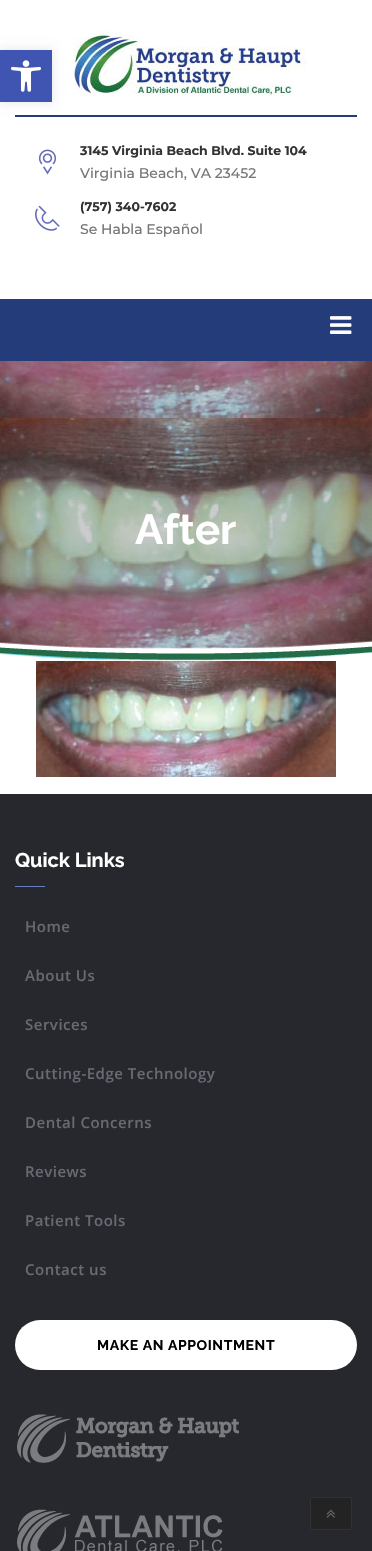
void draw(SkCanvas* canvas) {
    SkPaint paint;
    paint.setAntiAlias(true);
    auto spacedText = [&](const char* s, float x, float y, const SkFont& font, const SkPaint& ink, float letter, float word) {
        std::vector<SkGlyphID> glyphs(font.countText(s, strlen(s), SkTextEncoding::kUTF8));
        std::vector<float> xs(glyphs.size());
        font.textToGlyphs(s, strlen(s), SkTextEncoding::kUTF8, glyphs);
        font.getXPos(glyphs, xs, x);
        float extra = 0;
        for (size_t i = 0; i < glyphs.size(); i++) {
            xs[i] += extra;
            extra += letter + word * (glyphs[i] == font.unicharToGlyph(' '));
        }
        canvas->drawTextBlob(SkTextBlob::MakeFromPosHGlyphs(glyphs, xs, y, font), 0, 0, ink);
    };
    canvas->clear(0xFFFFFFFF);
    paint.setColor(0xFF253C7A);
    canvas->drawRect(SkRect::MakeXYWH(15, 115, 342, 2), paint);
    canvas->drawImageRect(SkImages::DeferredFromEncodedData(SkData::MakeFromFileName("img2.png")), SkRect::MakeXYWH(67, 30, 239, 66), SkSamplingOptions());
    paint.setColor(0x1A000000);
    paint.setMaskFilter(SkMaskFilter::MakeBlur(kNormal_SkBlurStyle, 5));
    canvas->drawRect(SkRect::MakeXYWH(0, 50, 52, 52), paint);
    paint.setMaskFilter(nullptr);
    paint.setColor(0xFF4054B2);
    canvas->drawRect(SkRect::MakeXYWH(0, 50, 52, 52), paint);
    canvas->drawImageRect(SkImages::DeferredFromEncodedData(SkData::MakeFromFileName("img1.png")), SkRect::MakeXYWH(11, 60, 30, 32), SkSamplingOptions());
    canvas->drawImageRect(SkImages::DeferredFromEncodedData(SkData::MakeFromFileName("img3.png")), SkRect::MakeXYWH(38, 149, 19, 26), SkSamplingOptions());
    SkFont font1(fontMgr->matchFamilyStyle("Montserrat", SkFontStyle::Bold()), 12.5f);
    font1.setSubpixel(true);
    paint.setColor(0xFF333333);
    canvas->drawString("3145 Virginia Beach Blvd. Suite 104", 80, 155, font1, paint);
    SkFont font2(fontMgr->matchFamilyStyle("Montserrat", SkFontStyle(500, SkFontStyle::kNormal_Width, SkFontStyle::kUpright_Slant)), 14);
    font2.setSubpixel(true);
    paint.setColor(0xFF767676);
    canvas->drawString("Virginia Beach, VA 23452", 80, 178, font2, paint);
    canvas->drawImageRect(SkImages::DeferredFromEncodedData(SkData::MakeFromFileName("img4.png")), SkRect::MakeXYWH(35, 205, 25, 26), SkSamplingOptions());
    paint.setColor(0xFF333333);
    canvas->drawString("(757) 340-7602", 80, 211, font1, paint);
    paint.setColor(0xFF767676);
    canvas->drawString("Se Habla Español", 80, 234, font2, paint);
    paint.setColor(0xFF253C7A);
    canvas->drawRect(SkRect::MakeXYWH(0, 299, 372, 62), paint);
    canvas->drawImageRect(SkImages::DeferredFromEncodedData(SkData::MakeFromFileName("img5.png")), SkRect::MakeXYWH(330, 316, 22, 18), SkSamplingOptions());
    canvas->drawImageRect(SkImages::DeferredFromEncodedData(SkData::MakeFromFileName("img6.png")), SkRect::MakeXYWH(0, 361, 372, 288), SkSamplingOptions());
    SkFont font3(fontMgr->matchFamilyStyle("Raleway", SkFontStyle::Bold()), 42);
    font3.setSubpixel(true);
    paint.setColor(0xFFFFFFFF);
    canvas->drawString("After", 135, 544, font3, paint);
    canvas->drawImageRect(SkImages::DeferredFromEncodedData(SkData::MakeFromFileName("img7.png")), SkRect::MakeXYWH(0, 640, 372, 21), SkSamplingOptions());
    canvas->drawImageRect(SkImages::DeferredFromEncodedData(SkData::MakeFromFileName("img8.png")), SkRect::MakeXYWH(36, 661, 300, 116), SkSamplingOptions());
    paint.setColor(0xFF27282D);
    canvas->drawRect(SkRect::MakeXYWH(0, 794, 372, 757), paint);
    SkFont font4(fontMgr->matchFamilyStyle("Raleway", SkFontStyle::Bold()), 20);
    font4.setSubpixel(true);
    paint.setColor(0xFFFFFFFF);
    canvas->drawString("Quick Links", 15, 867, font4, paint);
    paint.setColor(0xFF667DBE);
    canvas->drawRect(SkRect::MakeXYWH(15, 886, 30, 1), paint);
    SkFont font5(fontMgr->matchFamilyStyle("Open Sans", SkFontStyle(600, SkFontStyle::kNormal_Width, SkFontStyle::kUpright_Slant)), 15);
    font5.setSubpixel(true);
    paint.setColor(0xFF676973);
    spacedText("Home", 25, 932, font5, paint, 0.5f, 0);
    spacedText("About Us", 25, 981, font5, paint, 0.5f, 0);
    spacedText("Services", 25, 1030, font5, paint, 0.5f, 0);
    spacedText("Cutting-Edge Technology", 25, 1079, font5, paint, 0.5f, 0);
    spacedText("Dental Concerns", 25, 1128, font5, paint, 0.5f, 0);
    spacedText("Reviews", 25, 1177, font5, paint, 0.5f, 0);
    spacedText("Patient Tools", 25, 1226, font5, paint, 0.5f, 0);
    spacedText("Contact us", 25, 1275, font5, paint, 0.5f, 0);
    paint.setColor(0xFFFFFFFF);
    canvas->drawRoundRect(SkRect::MakeXYWH(15, 1320, 342, 50), 25, 25, paint);
    SkFont font6(fontMgr->matchFamilyStyle("Raleway", SkFontStyle::Bold()), 14);
    font6.setSubpixel(true);
    paint.setColor(0xFF000000);
    spacedText("MAKE AN APPOINTMENT", 97, 1350, font6, paint, 0.6f, 0);
    canvas->drawImageRect(SkImages::DeferredFromEncodedData(SkData::MakeFromFileName("img9.png")), SkRect::MakeXYWH(17, 1414, 222, 49), SkSamplingOptions());
    canvas->drawImageRect(SkImages::DeferredFromEncodedData(SkData::MakeFromFileName("img10.png")), SkRect::MakeXYWH(17, 1509, 206, 42), SkSamplingOptions());
    paint.setColor(0xFF232324);
    canvas->drawRoundRect(SkRect::MakeXYWH(310.5f, 1497.5f, 41, 32), 1.5f, 1.5f, paint);
    paint.setStyle(SkPaint::kStroke_Style);
    paint.setStrokeWidth(1);
    paint.setColor(0xFF313132);
    canvas->drawRoundRect(SkRect::MakeXYWH(310.5f, 1497.5f, 41, 32), 1.5f, 1.5f, paint);
    canvas->drawImageRect(SkImages::DeferredFromEncodedData(SkData::MakeFromFileName("img11.png")), SkRect::MakeXYWH(326, 1509, 9, 9), SkSamplingOptions());
}
